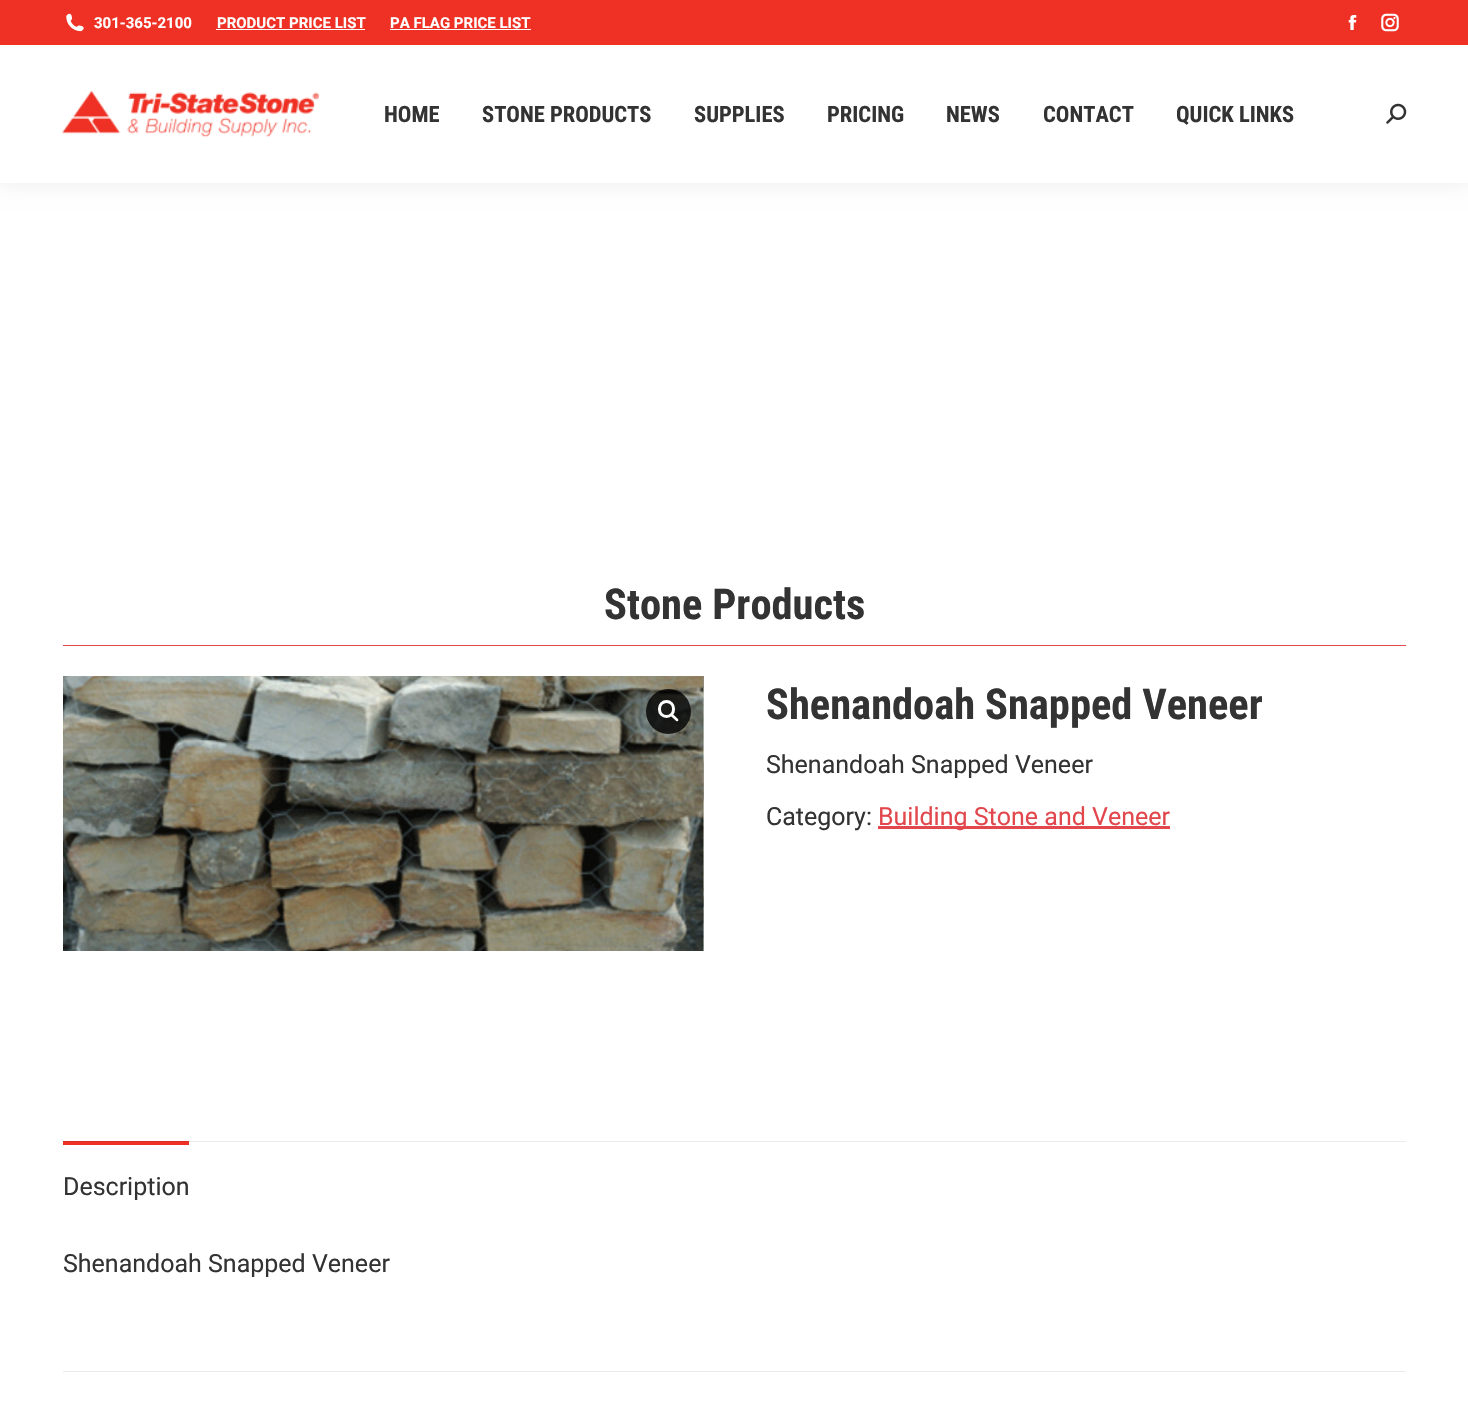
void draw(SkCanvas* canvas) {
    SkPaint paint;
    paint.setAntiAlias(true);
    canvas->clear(0xFFFFFFFF);
    paint.setColor(0x12000000);
    paint.setMaskFilter(SkMaskFilter::MakeBlur(kNormal_SkBlurStyle, 9.5f));
    canvas->drawRect(SkRect::MakeXYWH(-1, -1, 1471, 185), paint);
    paint.setMaskFilter(nullptr);
    paint.setColor(0xFFFFFFFF);
    canvas->drawRect(SkRect::MakeXYWH(0, 45, 1468, 138), paint);
    paint.setColor(0xFFEE3124);
    canvas->drawRect(SkRect::MakeXYWH(0, 0, 1468, 45), paint);
    canvas->drawImageRect(SkImages::DeferredFromEncodedData(SkData::MakeFromFileName("img1.png")), SkRect::MakeXYWH(66, 13, 18, 19), SkSamplingOptions());
    SkFont font1(fontMgr->matchFamilyStyle("Roboto", SkFontStyle::Bold()), 15);
    font1.setSubpixel(true);
    paint.setColor(0xFFFFFFFF);
    canvas->drawString("301-365-2100", 94, 28, font1, paint);
    canvas->drawString("PRODUCT PRICE LIST", 217, 28, font1, paint);
    canvas->drawRect(SkRect::MakeXYWH(216, 29, 149, 1), paint);
    canvas->drawString("PA FLAG PRICE LIST", 390, 28, font1, paint);
    canvas->drawRect(SkRect::MakeXYWH(390, 29, 141, 1), paint);
    canvas->drawImageRect(SkImages::DeferredFromEncodedData(SkData::MakeFromFileName("img2.png")), SkRect::MakeXYWH(1348, 15, 9, 15), SkSamplingOptions());
    canvas->drawImageRect(SkImages::DeferredFromEncodedData(SkData::MakeFromFileName("img3.png")), SkRect::MakeXYWH(1381, 13, 18, 19), SkSamplingOptions());
    canvas->drawImageRect(SkImages::DeferredFromEncodedData(SkData::MakeFromFileName("img4.png")), SkRect::MakeXYWH(62, 91, 257, 46), SkSamplingOptions());
    SkFont font2(fontMgr->matchFamilyStyle("Roboto Condensed", SkFontStyle::Bold()), 22.5f);
    font2.setSubpixel(true);
    paint.setColor(0xFF333333);
    canvas->drawString("HOME", 384, 122, font2, paint);
    canvas->drawString("STONE PRODUCTS", 482, 122, font2, paint);
    canvas->drawString("SUPPLIES", 694, 122, font2, paint);
    canvas->drawString("PRICING", 827, 122, font2, paint);
    canvas->drawString("NEWS", 946, 122, font2, paint);
    canvas->drawString("CONTACT", 1043, 122, font2, paint);
    canvas->drawString("QUICK LINKS", 1176, 122, font2, paint);
    canvas->drawImageRect(SkImages::DeferredFromEncodedData(SkData::MakeFromFileName("img5.png")), SkRect::MakeXYWH(1386, 103, 21, 21), SkSamplingOptions());
    SkFont font3(fontMgr->matchFamilyStyle("Roboto Condensed", SkFontStyle::Bold()), 42.5f);
    font3.setSubpixel(true);
    canvas->drawString("Stone Products", 604, 619, font3, paint);
    paint.setColor(0xFFE1474D);
    canvas->drawRect(SkRect::MakeXYWH(63, 645, 1343, 1), paint);
    canvas->drawImageRect(SkImages::DeferredFromEncodedData(SkData::MakeFromFileName("img6.png")), SkRect::MakeXYWH(63, 676, 641, 275), SkSamplingOptions());
    canvas->drawImageRect(SkImages::DeferredFromEncodedData(SkData::MakeFromFileName("img7.png")), SkRect::MakeXYWH(703, 676, 1, 275), SkSamplingOptions());
    paint.setColor(0xCC000000);
    canvas->drawCircle(668.5f, 711.5f, 22.5f, paint);
    paint.setStyle(SkPaint::kStroke_Style);
    paint.setStrokeWidth(3);
    paint.setColor(0xFFFFFFFF);
    canvas->drawRoundRect(SkRect::MakeXYWH(659.5f, 701.5f, 14, 15), 7, 7, paint);
    paint.setStyle(SkPaint::kFill_Style);
    canvas->drawPath(SkPathBuilder().moveTo(671, 714).cubicTo(672.5f, 712.5f, 674.5f, 716, 675.5f, 716.5f).cubicTo(676, 717.5f, 679.5f, 719.5f, 678, 721).cubicTo(676.5f, 722.5f, 674.5f, 719, 673.5f, 718.5f).cubicTo(672.5f, 717.5f, 669.5f, 715.5f, 671, 714).close().detach(), paint);
    paint.setColor(0xFF333333);
    canvas->drawString("Shenandoah Snapped Veneer", 766, 719, font3, paint);
    SkFont font4(fontMgr->matchFamilyStyle("Roboto", SkFontStyle::Normal()), 25);
    font4.setSubpixel(true);
    canvas->drawString("Shenandoah Snapped Veneer", 766, 773, font4, paint);
    canvas->drawString("Category:", 766, 825, font4, paint);
    paint.setColor(0xFFE1474D);
    canvas->drawRect(SkRect::MakeXYWH(878, 826, 292, 3), paint);
    canvas->drawString("Building Stone and Veneer", 878, 825, font4, paint);
    paint.setColor(0xFFEE3124);
    canvas->drawRect(SkRect::MakeXYWH(63, 1141, 126, 4), paint);
    paint.setColor(0x14000000);
    canvas->drawRect(SkRect::MakeXYWH(63, 1141, 1343, 1), paint);
    paint.setColor(0xFF333333);
    canvas->drawString("Description", 63, 1195, font4, paint);
    canvas->drawString("Shenandoah Snapped Veneer", 63, 1272, font4, paint);
    paint.setColor(0xFFEBEBEB);
    canvas->drawRect(SkRect::MakeXYWH(63, 1371, 1343, 1), paint);
}
